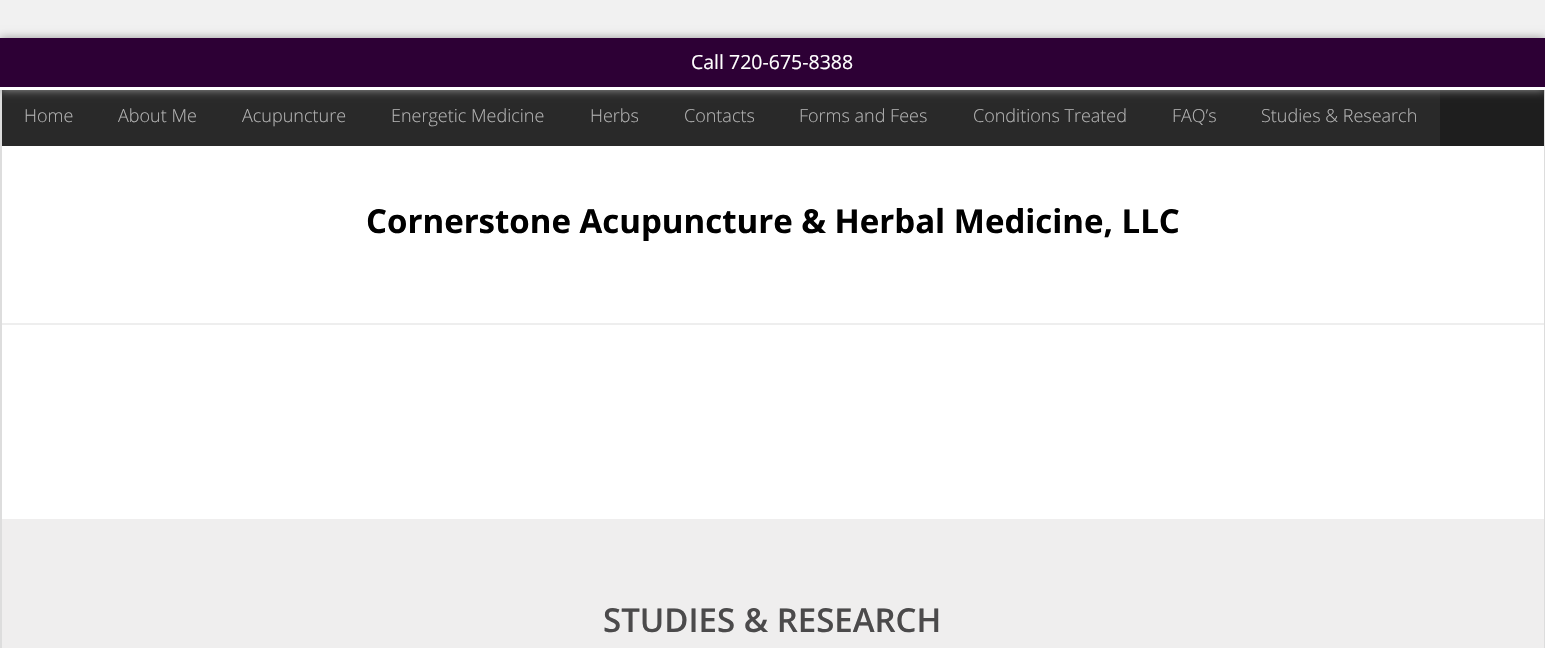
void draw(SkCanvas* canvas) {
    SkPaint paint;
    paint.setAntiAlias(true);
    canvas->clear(0xFFF1F1F1);
    paint.setStyle(SkPaint::kStroke_Style);
    paint.setStrokeWidth(2);
    paint.setColor(0xFFDDDDDD);
    canvas->drawRect(SkRect::MakeXYWH(1, 39, 1543, 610), paint);
    paint.setStyle(SkPaint::kFill_Style);
    paint.setColor(0xFF1E1E1E);
    canvas->drawRect(SkRect::MakeXYWH(1440, 90, 104, 56), paint);
    paint.setColor(0xFF292929);
    canvas->drawRect(SkRect::MakeXYWH(2, 90, 1438, 56), paint);
    paint.setColor(0xFF999999);
    paint.setMaskFilter(SkMaskFilter::MakeBlur(kNormal_SkBlurStyle, 4.5f));
    canvas->drawRect(SkRect::MakeXYWH(0, 38, 1545, 52), paint);
    paint.setMaskFilter(nullptr);
    paint.setColor(0xFF2D0035);
    canvas->drawRect(SkRect::MakeXYWH(0, 38, 1545, 49), paint);
    paint.setColor(0xFFFFFFFF);
    canvas->drawRect(SkRect::MakeXYWH(0, 87, 1545, 3), paint);
    SkFont font1(fontMgr->matchFamilyStyle("Open Sans", SkFontStyle::Normal()), 19.5f);
    font1.setSubpixel(true);
    canvas->drawString("Call 720-675-8388", 691, 69, font1, paint);
    SkFont font2(fontMgr->matchFamilyStyle("Open Sans", SkFontStyle(300, SkFontStyle::kNormal_Width, SkFontStyle::kUpright_Slant)), 18);
    font2.setSubpixel(true);
    paint.setColor(0xFFB3B3B3);
    canvas->drawString("Home", 24, 122, font2, paint);
    canvas->drawString("About Me", 118, 122, font2, paint);
    canvas->drawString("Acupuncture", 242, 122, font2, paint);
    canvas->drawString("Energetic Medicine", 391, 122, font2, paint);
    canvas->drawString("Herbs", 590, 122, font2, paint);
    canvas->drawString("Contacts", 684, 122, font2, paint);
    canvas->drawString("Forms and Fees", 799, 122, font2, paint);
    canvas->drawString("Conditions Treated", 973, 122, font2, paint);
    canvas->drawString("FAQ’s", 1172, 122, font2, paint);
    canvas->drawString("Studies & Research", 1261, 122, font2, paint);
    paint.setColor(0xFFFFFFFF);
    canvas->drawRect(SkRect::MakeXYWH(2, 146, 1542, 373), paint);
    SkFont font3(fontMgr->matchFamilyStyle("Open Sans", SkFontStyle::Bold()), 33);
    font3.setSubpixel(true);
    paint.setColor(0xFF000000);
    canvas->drawString("Cornerstone Acupuncture & Herbal Medicine, LLC", 366, 233, font3, paint);
    paint.setColor(0xFFEEEEEE);
    canvas->drawRect(SkRect::MakeXYWH(2, 323, 1542, 2), paint);
    paint.setColor(0xFFEFEEEE);
    canvas->drawRect(SkRect::MakeXYWH(2, 519, 1542, 129), paint);
    SkFont font4(fontMgr->matchFamilyStyle("Open Sans", SkFontStyle(600, SkFontStyle::kNormal_Width, SkFontStyle::kUpright_Slant)), 33);
    font4.setSubpixel(true);
    paint.setColor(0xFF4B4A4B);
    canvas->drawString("STUDIES & RESEARCH", 603, 632, font4, paint);
}
